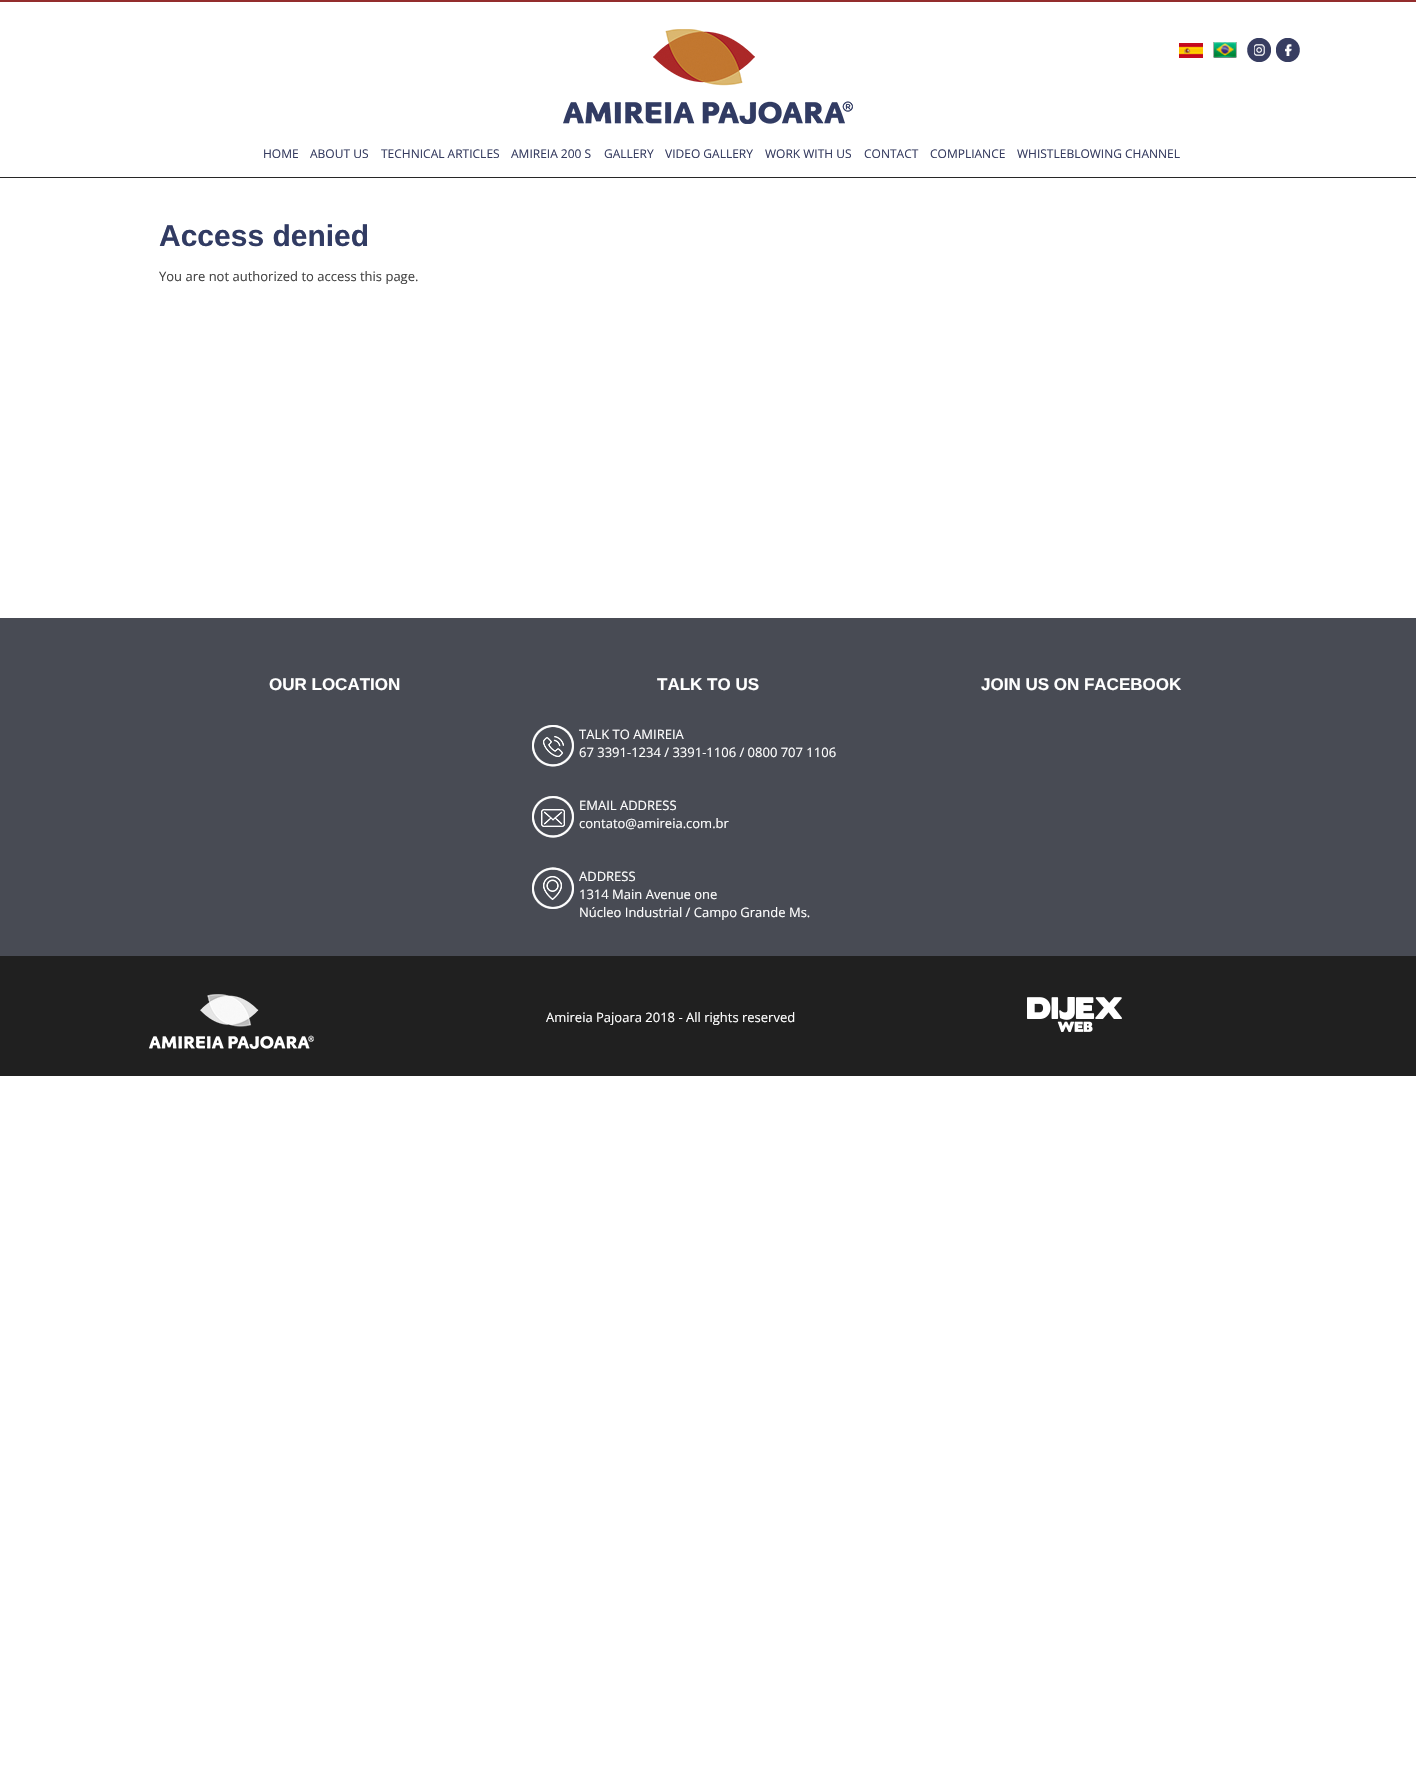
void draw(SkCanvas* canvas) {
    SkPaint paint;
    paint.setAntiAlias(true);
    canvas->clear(0xFFFFFFFF);
    paint.setColor(0xFF932D2D);
    canvas->drawRect(SkRect::MakeXYWH(0, 0, 1416, 2), paint);
    canvas->drawImageRect(SkImages::DeferredFromEncodedData(SkData::MakeFromFileName("img1.png")), SkRect::MakeXYWH(563, 29, 290, 95), SkSamplingOptions());
    canvas->drawImageRect(SkImages::DeferredFromEncodedData(SkData::MakeFromFileName("img2.png")), SkRect::MakeXYWH(1179, 43, 24, 15), SkSamplingOptions());
    canvas->drawImageRect(SkImages::DeferredFromEncodedData(SkData::MakeFromFileName("img3.png")), SkRect::MakeXYWH(1213, 42, 24, 16), SkSamplingOptions());
    canvas->drawImageRect(SkImages::DeferredFromEncodedData(SkData::MakeFromFileName("img4.png")), SkRect::MakeXYWH(1247, 38, 24, 24), SkSamplingOptions());
    canvas->drawImageRect(SkImages::DeferredFromEncodedData(SkData::MakeFromFileName("img5.png")), SkRect::MakeXYWH(1276, 38, 24, 24), SkSamplingOptions());
    SkFont font1(fontMgr->matchFamilyStyle("Open Sans", SkFontStyle::Normal()), 12);
    font1.setSubpixel(true);
    paint.setColor(0xFF373D61);
    canvas->drawString("HOME", 263, 158, font1, paint);
    canvas->drawString("ABOUT US", 310, 158, font1, paint);
    canvas->drawString("TECHNICAL ARTICLES", 381, 158, font1, paint);
    canvas->drawString("AMIREIA 200 S", 511, 158, font1, paint);
    canvas->drawString("GALLERY", 604, 158, font1, paint);
    canvas->drawString("VIDEO GALLERY", 665, 158, font1, paint);
    canvas->drawString("WORK WITH US", 765, 158, font1, paint);
    canvas->drawString("CONTACT", 864, 158, font1, paint);
    canvas->drawString("COMPLIANCE", 930, 158, font1, paint);
    canvas->drawString("WHISTLEBLOWING CHANNEL", 1017, 158, font1, paint);
    paint.setColor(0xFF272727);
    canvas->drawRect(SkRect::MakeXYWH(0, 177, 1416, 1), paint);
    SkFont font2(fontMgr->matchFamilyStyle("Liberation Sans", SkFontStyle::Bold()), 30);
    font2.setSubpixel(true);
    paint.setColor(0xFF313B63);
    canvas->drawString("Access denied", 159, 246, font2, paint);
    SkFont font3(fontMgr->matchFamilyStyle("Open Sans", SkFontStyle::Normal()), 13);
    font3.setSubpixel(true);
    paint.setColor(0xFF444444);
    canvas->drawString("You are not authorized to access this page.", 159, 281, font3, paint);
    paint.setColor(0xFF484B54);
    canvas->drawRect(SkRect::MakeXYWH(0, 618, 1416, 338), paint);
    SkFont font4(fontMgr->matchFamilyStyle("Liberation Sans", SkFontStyle::Bold()), 17);
    font4.setSubpixel(true);
    paint.setColor(0xFFFFFFFF);
    canvas->drawString("OUR LOCATION", 269, 690, font4, paint);
    canvas->drawString("TALK TO US", 657, 690, font4, paint);
    canvas->drawImageRect(SkImages::DeferredFromEncodedData(SkData::MakeFromFileName("img6.png")), SkRect::MakeXYWH(532, 725, 42, 42), SkSamplingOptions());
    canvas->drawString("TALK TO AMIREIA", 579, 739, font3, paint);
    canvas->drawString("67 3391-1234 / 3391-1106 / 0800 707 1106", 579, 757, font3, paint);
    canvas->drawImageRect(SkImages::DeferredFromEncodedData(SkData::MakeFromFileName("img7.png")), SkRect::MakeXYWH(532, 796, 42, 42), SkSamplingOptions());
    canvas->drawString("EMAIL ADDRESS", 579, 810, font3, paint);
    canvas->drawString("contato@amireia.com.br", 579, 828, font3, paint);
    canvas->drawImageRect(SkImages::DeferredFromEncodedData(SkData::MakeFromFileName("img8.png")), SkRect::MakeXYWH(532, 867, 42, 42), SkSamplingOptions());
    canvas->drawString("ADDRESS", 579, 881, font3, paint);
    canvas->drawString("1314 Main Avenue one", 579, 899, font3, paint);
    canvas->drawString("Núcleo Industrial / Campo Grande Ms.", 579, 917, font3, paint);
    canvas->drawString("JOIN US ON FACEBOOK", 981, 690, font4, paint);
    paint.setColor(0xFF202020);
    canvas->drawRect(SkRect::MakeXYWH(0, 956, 1416, 120), paint);
    canvas->drawImageRect(SkImages::DeferredFromEncodedData(SkData::MakeFromFileName("img9.png")), SkRect::MakeXYWH(149, 994, 165, 55), SkSamplingOptions());
    paint.setColor(0xFFFFFFFF);
    canvas->drawString("Amireia Pajoara 2018 - All rights reserved", 546, 1022, font3, paint);
    canvas->drawImageRect(SkImages::DeferredFromEncodedData(SkData::MakeFromFileName("img10.png")), SkRect::MakeXYWH(1027, 997, 95, 35), SkSamplingOptions());
}
